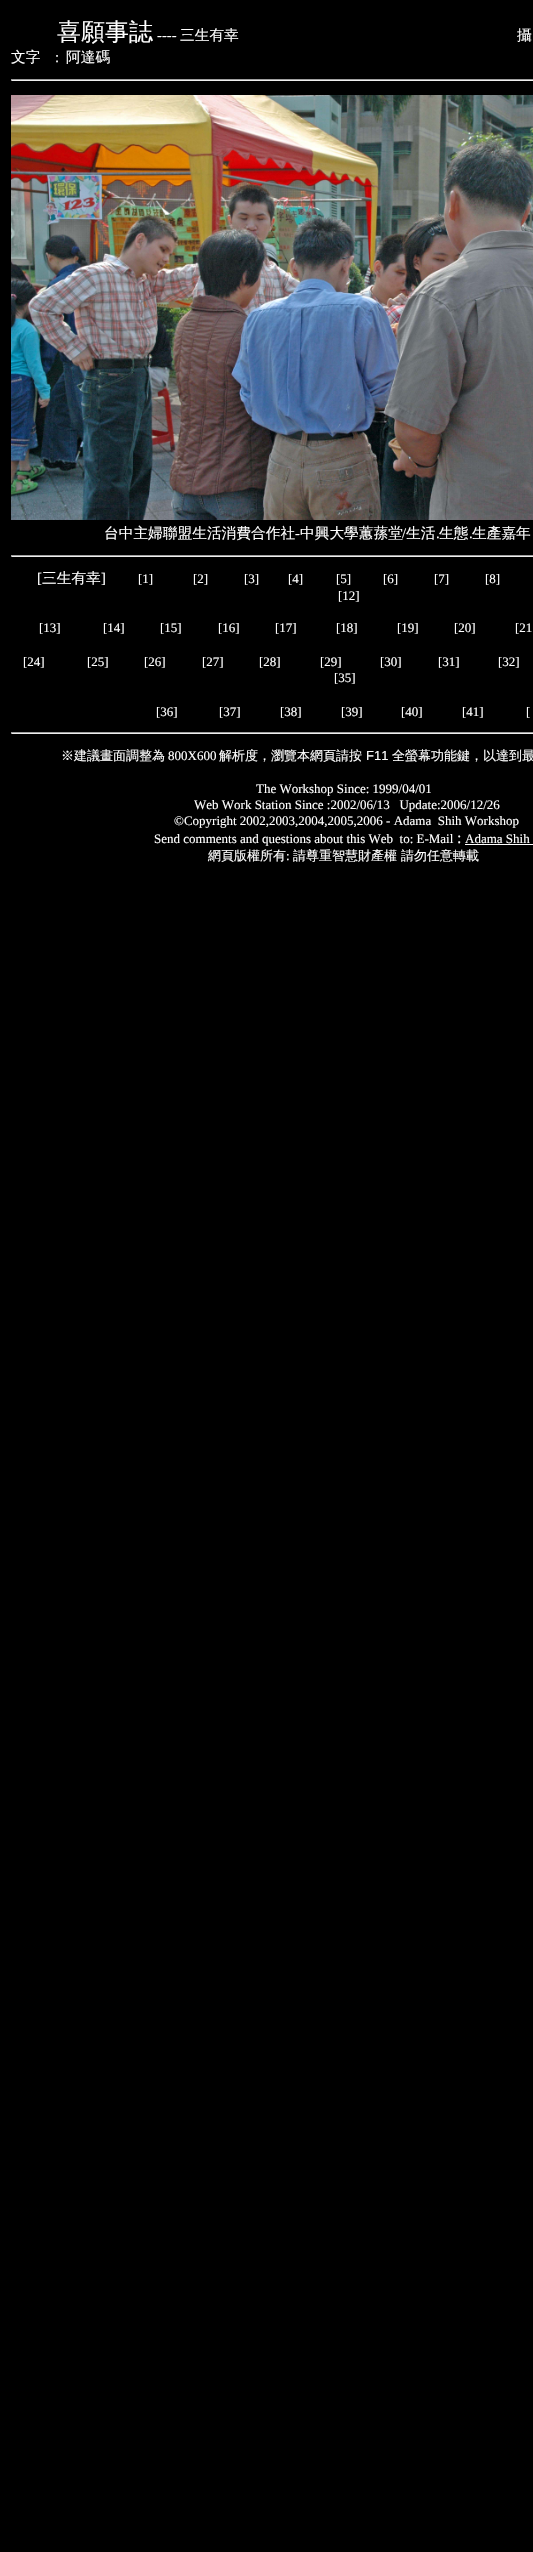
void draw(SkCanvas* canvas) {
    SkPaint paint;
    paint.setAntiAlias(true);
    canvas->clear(0xFF000000);
    SkFont font1(fontMgr->matchFamilyStyle("WenQuanYi Zen Hei", SkFontStyle(500, SkFontStyle::kNormal_Width, SkFontStyle::kUpright_Slant)), 24);
    font1.setSubpixel(true);
    paint.setColor(0xFFFFFFFF);
    canvas->drawString("喜願事誌", 57, 40, font1, paint);
    SkFont font2(fontMgr->matchFamilyStyle("Liberation Serif", SkFontStyle::Normal()), 14.7f);
    font2.setSubpixel(true);
    canvas->drawString("----", 157, 40, font2, paint);
    SkFont font3(fontMgr->matchFamilyStyle("WenQuanYi Zen Hei", SkFontStyle(500, SkFontStyle::kNormal_Width, SkFontStyle::kUpright_Slant)), 14.7f);
    font3.setSubpixel(true);
    canvas->drawString("三生有幸", 180, 40, font3, paint);
    canvas->drawString("攝", 517, 40, font3, paint);
    canvas->drawString("文字", 11, 62, font3, paint);
    canvas->drawString(":", 55, 62, font2, paint);
    canvas->drawString("阿達碼", 66, 62, font3, paint);
    paint.setColor(0xFF9F9F9F);
    canvas->drawRect(SkRect::MakeXYWH(11, 79, 522, 1), paint);
    paint.setColor(0xFFEEEEEE);
    canvas->drawRect(SkRect::MakeXYWH(11, 80, 522, 1), paint);
    paint.setColor(0xFF9F9F9F);
    canvas->drawRect(SkRect::MakeXYWH(11, 79, 1, 2), paint);
    canvas->drawImageRect(SkImages::DeferredFromEncodedData(SkData::MakeFromFileName("img1.png")), SkRect::MakeXYWH(11, 95, 522, 425), SkSamplingOptions());
    paint.setColor(0xFFFFFFFF);
    canvas->drawString("台中主婦聯盟生活消費合作社", 104, 538, font3, paint);
    canvas->drawString("-", 295, 538, font2, paint);
    canvas->drawString("中興大學蕙蓀堂", 300, 538, font3, paint);
    canvas->drawString("/", 402, 538, font2, paint);
    canvas->drawString("生活", 406, 538, font3, paint);
    canvas->drawString("生態", 439, 538, font3, paint);
    canvas->drawString("生產嘉年", 472, 538, font3, paint);
    canvas->drawString(".", 436, 538, font2, paint);
    canvas->drawString(".", 469, 538, font2, paint);
    paint.setColor(0xFF9F9F9F);
    canvas->drawRect(SkRect::MakeXYWH(11, 555, 522, 1), paint);
    paint.setColor(0xFFEEEEEE);
    canvas->drawRect(SkRect::MakeXYWH(11, 556, 522, 1), paint);
    paint.setColor(0xFF9F9F9F);
    canvas->drawRect(SkRect::MakeXYWH(11, 555, 1, 2), paint);
    paint.setColor(0xFFFFFFFF);
    canvas->drawString("[", 37, 583, font2, paint);
    canvas->drawString("三生有幸", 42, 583, font3, paint);
    canvas->drawString("]", 101, 583, font2, paint);
    SkFont font4(fontMgr->matchFamilyStyle("Liberation Serif", SkFontStyle::Normal()), 13);
    font4.setSubpixel(true);
    canvas->drawString("[1]", 138, 583, font4, paint);
    canvas->drawString("[2]", 193, 583, font4, paint);
    canvas->drawString("[3]", 244, 583, font4, paint);
    canvas->drawString("[4]", 288, 583, font4, paint);
    canvas->drawString("[5]", 336, 583, font4, paint);
    canvas->drawString("[6]", 383, 583, font4, paint);
    canvas->drawString("[7]", 434, 583, font4, paint);
    canvas->drawString("[8]", 485, 583, font4, paint);
    canvas->drawString("[12]", 338, 600, font4, paint);
    canvas->drawString("[13]", 39, 632, font4, paint);
    canvas->drawString("[14]", 103, 632, font4, paint);
    canvas->drawString("[15]", 160, 632, font4, paint);
    canvas->drawString("[16]", 218, 632, font4, paint);
    canvas->drawString("[17]", 275, 632, font4, paint);
    canvas->drawString("[18]", 336, 632, font4, paint);
    canvas->drawString("[19]", 397, 632, font4, paint);
    canvas->drawString("[20]", 454, 632, font4, paint);
    canvas->drawString("[21", 515, 632, font4, paint);
    canvas->drawString("[24]", 23, 666, font4, paint);
    canvas->drawString("[25]", 87, 666, font4, paint);
    canvas->drawString("[26]", 144, 666, font4, paint);
    canvas->drawString("[27]", 202, 666, font4, paint);
    canvas->drawString("[28]", 259, 666, font4, paint);
    canvas->drawString("[29]", 320, 666, font4, paint);
    canvas->drawString("[30]", 380, 666, font4, paint);
    canvas->drawString("[31]", 438, 666, font4, paint);
    canvas->drawString("[32]", 498, 666, font4, paint);
    canvas->drawString("[35]", 334, 682, font4, paint);
    canvas->drawString("[36]", 156, 716, font4, paint);
    canvas->drawString("[37]", 219, 716, font4, paint);
    canvas->drawString("[38]", 280, 716, font4, paint);
    canvas->drawString("[39]", 341, 716, font4, paint);
    canvas->drawString("[40]", 401, 716, font4, paint);
    canvas->drawString("[41]", 462, 716, font4, paint);
    canvas->drawString("[", 526, 716, font4, paint);
    paint.setColor(0xFF9F9F9F);
    canvas->drawRect(SkRect::MakeXYWH(11, 732, 522, 1), paint);
    paint.setColor(0xFFEEEEEE);
    canvas->drawRect(SkRect::MakeXYWH(11, 733, 522, 1), paint);
    paint.setColor(0xFF9F9F9F);
    canvas->drawRect(SkRect::MakeXYWH(11, 732, 1, 2), paint);
    SkFont font5(fontMgr->matchFamilyStyle("WenQuanYi Zen Hei", SkFontStyle(500, SkFontStyle::kNormal_Width, SkFontStyle::kUpright_Slant)), 13);
    font5.setSubpixel(true);
    paint.setColor(0xFFFFFFFF);
    canvas->drawString("※建議畫面調整為", 61, 760, font5, paint);
    canvas->drawString("800X600", 168, 760, font4, paint);
    canvas->drawString("解析度，瀏覽本網頁請按", 219, 760, font5, paint);
    SkFont font6(fontMgr->matchFamilyStyle("Liberation Sans", SkFontStyle::Normal()), 13);
    font6.setSubpixel(true);
    canvas->drawString("F11", 366, 760, font6, paint);
    canvas->drawString("全螢幕功能鍵，以達到最", 392, 760, font5, paint);
    canvas->drawString("The Workshop Since: 1999/04/01", 256, 793, font4, paint);
    canvas->drawString("Web Work Station Since :2002/06/13   Update:2006/12/26", 194, 809, font4, paint);
    canvas->drawString("©Copyright 2002,2003,2004,2005,2006 - Adama  Shih Workshop", 174, 825, font4, paint);
    canvas->drawString("Send comments and questions about this Web  to: E-Mail", 154, 843, font4, paint);
    SkFont font7(fontMgr->matchFamilyStyle("Liberation Serif", SkFontStyle::Normal()), 16);
    font7.setSubpixel(true);
    canvas->drawString(":", 457, 843, font7, paint);
    canvas->drawString("Adama Shih", 465, 843, font4, paint);
    canvas->drawRect(SkRect::MakeXYWH(465, 844, 68, 1), paint);
    canvas->drawString("網頁版權所有", 208, 860, font5, paint);
    canvas->drawString(":", 286, 860, font4, paint);
    canvas->drawString("請尊重智慧財產權 請勿任意轉載", 293, 860, font5, paint);
}
